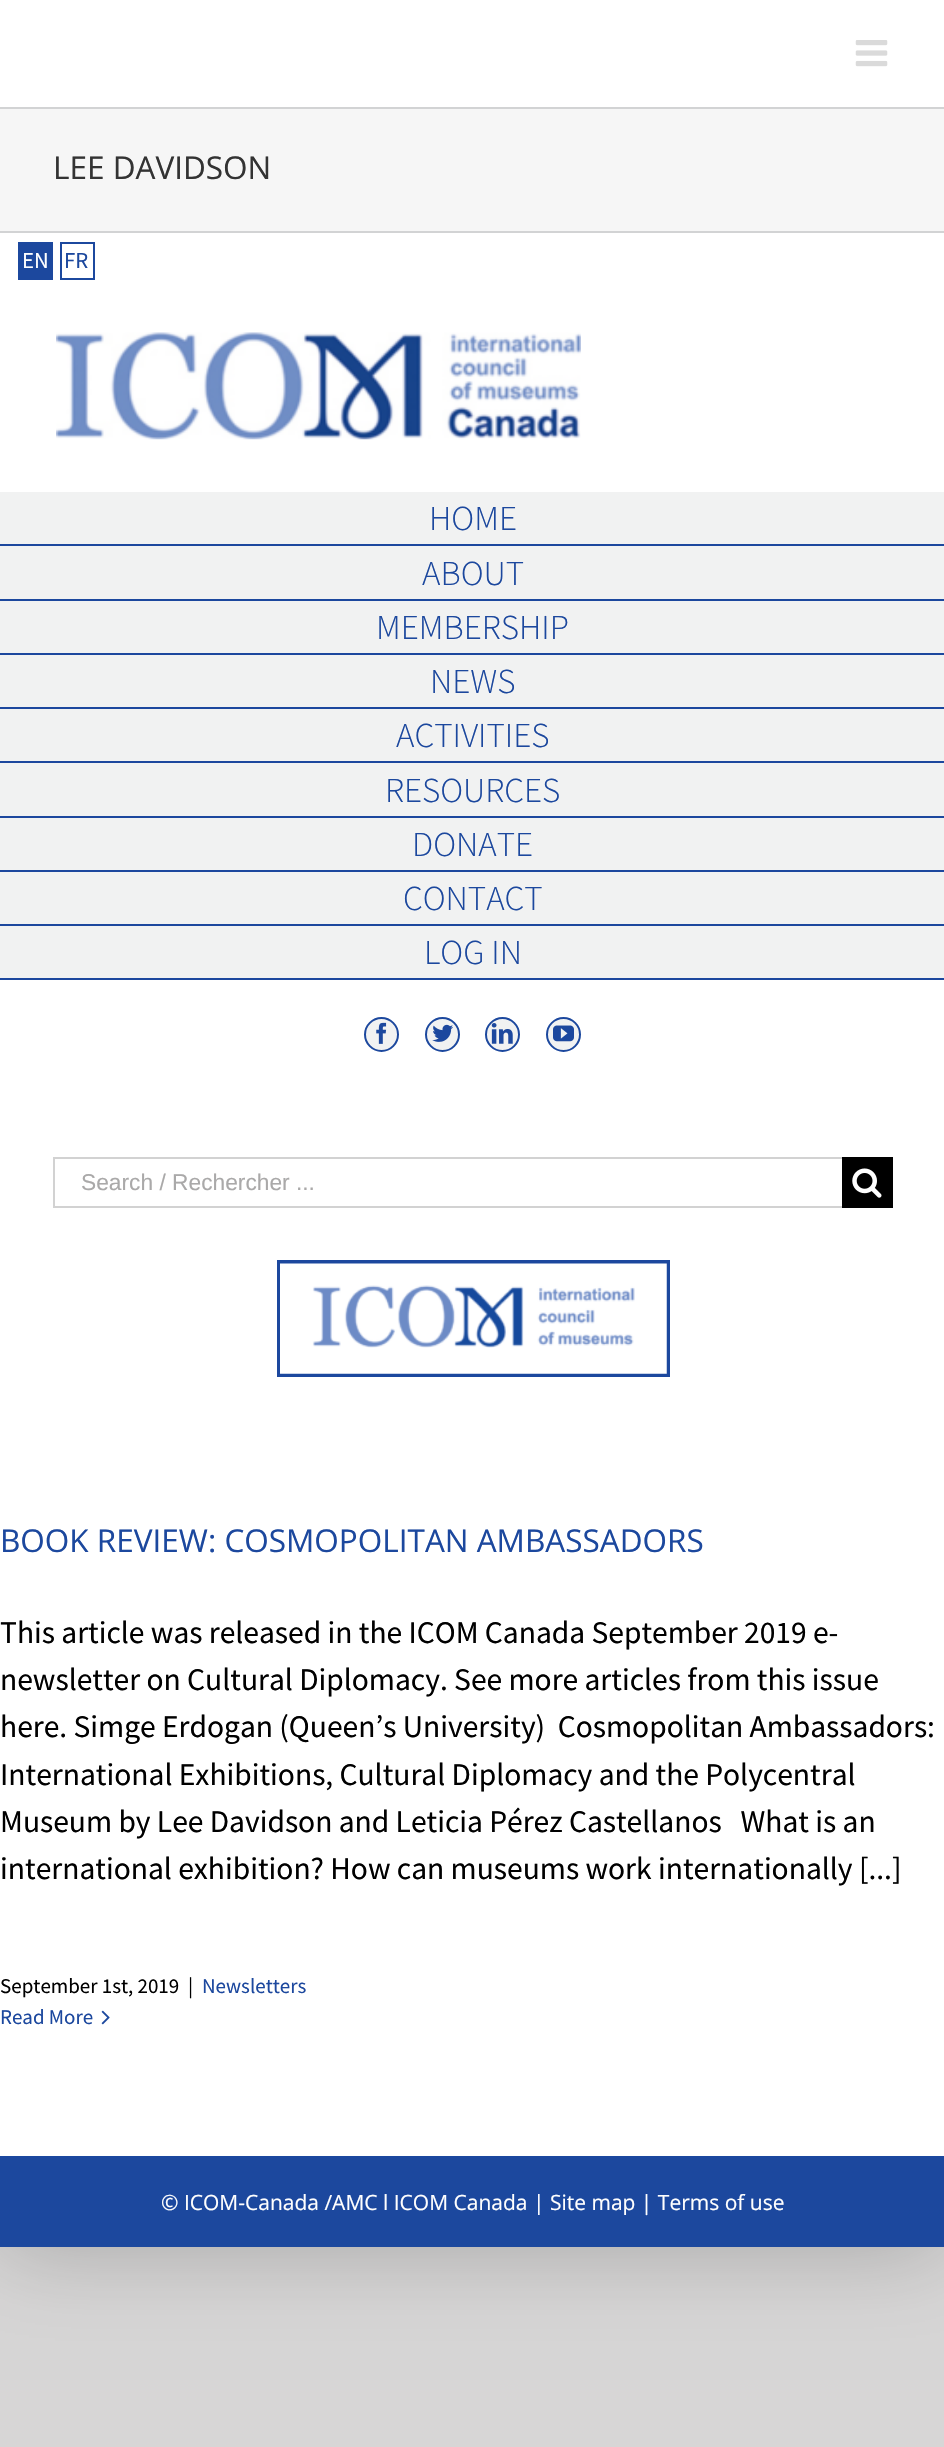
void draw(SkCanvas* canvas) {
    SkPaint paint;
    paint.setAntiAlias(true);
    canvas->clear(0xFFD7D6D6);
    paint.setColor(0x38000000);
    paint.setMaskFilter(SkMaskFilter::MakeBlur(kNormal_SkBlurStyle, 44));
    canvas->drawRect(SkRect::MakeXYWH(-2, -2, 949, 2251), paint);
    paint.setMaskFilter(nullptr);
    paint.setColor(0xFFFFFFFF);
    canvas->drawRect(SkRect::MakeXYWH(0, 0, 944, 107), paint);
    canvas->drawImageRect(SkImages::DeferredFromEncodedData(SkData::MakeFromFileName("img1.png")), SkRect::MakeXYWH(855, 40, 33, 27), SkSamplingOptions());
    paint.setColor(0xFFF6F6F6);
    canvas->drawRect(SkRect::MakeXYWH(0, 109, 944, 122), paint);
    paint.setColor(0xFFD2D3D4);
    canvas->drawRect(SkRect::MakeXYWH(0, 107, 944, 2), paint);
    canvas->drawRect(SkRect::MakeXYWH(0, 231, 944, 2), paint);
    SkFont font1(fontMgr->matchFamilyStyle("Open Sans", SkFontStyle::Normal()), 31.5f);
    font1.setSubpixel(true);
    paint.setColor(0xFF333333);
    canvas->drawString("LEE DAVIDSON", 53, 179, font1, paint);
    paint.setColor(0xFFFFFFFF);
    canvas->drawRect(SkRect::MakeXYWH(0, 233, 944, 1923), paint);
    paint.setStyle(SkPaint::kStroke_Style);
    paint.setStrokeWidth(2);
    paint.setColor(0xFF1C489E);
    canvas->drawRect(SkRect::MakeXYWH(19, 243, 33, 36), paint);
    paint.setStyle(SkPaint::kFill_Style);
    canvas->drawRect(SkRect::MakeXYWH(20, 244, 31, 34), paint);
    SkFont font2(fontMgr->matchFamilyStyle("Source Sans Pro", SkFontStyle::Normal()), 22.75f);
    font2.setSubpixel(true);
    paint.setColor(0xFFFFFFFF);
    canvas->drawString("EN", 22, 268, font2, paint);
    paint.setStyle(SkPaint::kStroke_Style);
    paint.setColor(0xFF1C489E);
    canvas->drawRect(SkRect::MakeXYWH(61, 243, 33, 36), paint);
    paint.setStyle(SkPaint::kFill_Style);
    canvas->drawString("FR", 64, 268, font2, paint);
    canvas->drawImageRect(SkImages::DeferredFromEncodedData(SkData::MakeFromFileName("img2.png")), SkRect::MakeXYWH(56, 332, 525, 108), SkSamplingOptions());
    paint.setColor(0xFFF1F2F2);
    canvas->drawRect(SkRect::MakeXYWH(0, 492, 944, 486), paint);
    paint.setColor(0xFF1C489E);
    canvas->drawRect(SkRect::MakeXYWH(0, 544, 944, 2), paint);
    SkFont font3(fontMgr->matchFamilyStyle("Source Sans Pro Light", SkFontStyle(300, SkFontStyle::kNormal_Width, SkFontStyle::kUpright_Slant)), 35);
    font3.setSubpixel(true);
    canvas->drawString("HOME", 429, 530, font3, paint);
    canvas->drawRect(SkRect::MakeXYWH(0, 599, 944, 2), paint);
    canvas->drawString("ABOUT", 422, 585, font3, paint);
    canvas->drawRect(SkRect::MakeXYWH(0, 653, 944, 2), paint);
    canvas->drawString("MEMBERSHIP", 376, 639, font3, paint);
    canvas->drawRect(SkRect::MakeXYWH(0, 707, 944, 2), paint);
    canvas->drawString("NEWS", 430, 693, font3, paint);
    canvas->drawRect(SkRect::MakeXYWH(0, 761, 944, 2), paint);
    canvas->drawString("ACTIVITIES", 396, 747, font3, paint);
    canvas->drawRect(SkRect::MakeXYWH(0, 816, 944, 2), paint);
    canvas->drawString("RESOURCES", 385, 802, font3, paint);
    canvas->drawRect(SkRect::MakeXYWH(0, 870, 944, 2), paint);
    canvas->drawString("DONATE", 412, 856, font3, paint);
    canvas->drawRect(SkRect::MakeXYWH(0, 924, 944, 2), paint);
    canvas->drawString("CONTACT", 403, 910, font3, paint);
    canvas->drawRect(SkRect::MakeXYWH(0, 978, 944, 2), paint);
    canvas->drawString("LOG IN", 424, 964, font3, paint);
    paint.setColor(0xFFF1F2F2);
    canvas->drawCircle(381.5f, 1034.5f, 16.5f, paint);
    paint.setStyle(SkPaint::kStroke_Style);
    paint.setColor(0xFF1C489E);
    canvas->drawCircle(381.5f, 1034.5f, 16.5f, paint);
    canvas->drawImageRect(SkImages::DeferredFromEncodedData(SkData::MakeFromFileName("img3.png")), SkRect::MakeXYWH(376, 1022, 11, 22), SkSamplingOptions());
    paint.setStyle(SkPaint::kFill_Style);
    paint.setColor(0xFFF1F2F2);
    canvas->drawCircle(442.5f, 1034.5f, 16.5f, paint);
    paint.setStyle(SkPaint::kStroke_Style);
    paint.setColor(0xFF1C489E);
    canvas->drawCircle(442.5f, 1034.5f, 16.5f, paint);
    canvas->drawImageRect(SkImages::DeferredFromEncodedData(SkData::MakeFromFileName("img4.png")), SkRect::MakeXYWH(432, 1024, 21, 18), SkSamplingOptions());
    paint.setStyle(SkPaint::kFill_Style);
    paint.setColor(0xFFF1F2F2);
    canvas->drawCircle(502.5f, 1034.5f, 16.5f, paint);
    paint.setStyle(SkPaint::kStroke_Style);
    paint.setColor(0xFF1C489E);
    canvas->drawCircle(502.5f, 1034.5f, 16.5f, paint);
    canvas->drawImageRect(SkImages::DeferredFromEncodedData(SkData::MakeFromFileName("img5.png")), SkRect::MakeXYWH(491, 1023, 22, 21), SkSamplingOptions());
    paint.setStyle(SkPaint::kFill_Style);
    paint.setColor(0xFFF1F2F2);
    canvas->drawCircle(563.5f, 1034.5f, 16.5f, paint);
    paint.setStyle(SkPaint::kStroke_Style);
    paint.setColor(0xFF1C489E);
    canvas->drawCircle(563.5f, 1034.5f, 16.5f, paint);
    canvas->drawImageRect(SkImages::DeferredFromEncodedData(SkData::MakeFromFileName("img6.png")), SkRect::MakeXYWH(553, 1025, 21, 17), SkSamplingOptions());
    paint.setStyle(SkPaint::kFill_Style);
    paint.setColor(0xFFD2D2D2);
    canvas->drawRect(SkRect::MakeXYWH(53, 1157, 789, 2), paint);
    canvas->drawRect(SkRect::MakeXYWH(53, 1206, 789, 2), paint);
    canvas->drawRect(SkRect::MakeXYWH(53, 1157, 2, 51), paint);
    SkFont font4(fontMgr->matchFamilyStyle("Liberation Sans", SkFontStyle::Normal()), 22.75f);
    font4.setSubpixel(true);
    paint.setColor(0xFFAAA9A9);
    canvas->drawString("Search / Rechercher ...", 81, 1190, font4, paint);
    paint.setColor(0xFF000000);
    canvas->drawRect(SkRect::MakeXYWH(842, 1157, 51, 51), paint);
    canvas->drawImageRect(SkImages::DeferredFromEncodedData(SkData::MakeFromFileName("img7.png")), SkRect::MakeXYWH(852, 1168, 30, 30), SkSamplingOptions());
    paint.setStyle(SkPaint::kStroke_Style);
    paint.setStrokeWidth(4);
    paint.setColor(0xFF1C489E);
    canvas->drawRect(SkRect::MakeXYWH(279, 1262, 389, 113), paint);
    canvas->drawImageRect(SkImages::DeferredFromEncodedData(SkData::MakeFromFileName("img8.png")), SkRect::MakeXYWH(280, 1263, 387, 111), SkSamplingOptions());
    paint.setStyle(SkPaint::kFill_Style);
    canvas->drawString("BOOK REVIEW: COSMOPOLITAN AMBASSADORS", 0, 1552, font1, paint);
    SkFont font5(fontMgr->matchFamilyStyle("Source Sans Pro", SkFontStyle::Normal()), 31.5f);
    font5.setSubpixel(true);
    paint.setColor(0xFF000000);
    canvas->drawString("This article was released in the ICOM Canada September 2019 e-", 0, 1643, font5, paint);
    canvas->drawString("newsletter on Cultural Diplomacy. See more articles from this issue", 0, 1690, font5, paint);
    canvas->drawString("here. Simge Erdogan (Queen’s University)  Cosmopolitan Ambassadors:", 0, 1737, font5, paint);
    canvas->drawString("International Exhibitions, Cultural Diplomacy and the Polycentral", 0, 1785, font5, paint);
    canvas->drawString("Museum by Lee Davidson and Leticia Pérez Castellanos   What is an", 0, 1832, font5, paint);
    canvas->drawString("international exhibition? How can museums work internationally [...]", 0, 1879, font5, paint);
    SkFont font6(fontMgr->matchFamilyStyle("Source Sans Pro", SkFontStyle::Normal()), 21);
    font6.setSubpixel(true);
    canvas->drawString("September 1st, 2019", 0, 1993, font6, paint);
    canvas->drawString("|", 188, 1993, font6, paint);
    paint.setColor(0xFF1C489E);
    canvas->drawString("Newsletters", 202, 1993, font6, paint);
    canvas->drawString("Read More", 0, 2024, font6, paint);
    canvas->drawImageRect(SkImages::DeferredFromEncodedData(SkData::MakeFromFileName("img9.png")), SkRect::MakeXYWH(101, 2010, 9, 15), SkSamplingOptions());
    canvas->drawRect(SkRect::MakeXYWH(0, 2156, 944, 91), paint);
    SkFont font7(fontMgr->matchFamilyStyle("Open Sans", SkFontStyle::Normal()), 21);
    font7.setSubpixel(true);
    paint.setColor(0xFFFFFFFF);
    canvas->drawString("© ICOM-Canada /AMC l ICOM Canada | Site map | Terms of use", 161, 2210, font7, paint);
}
